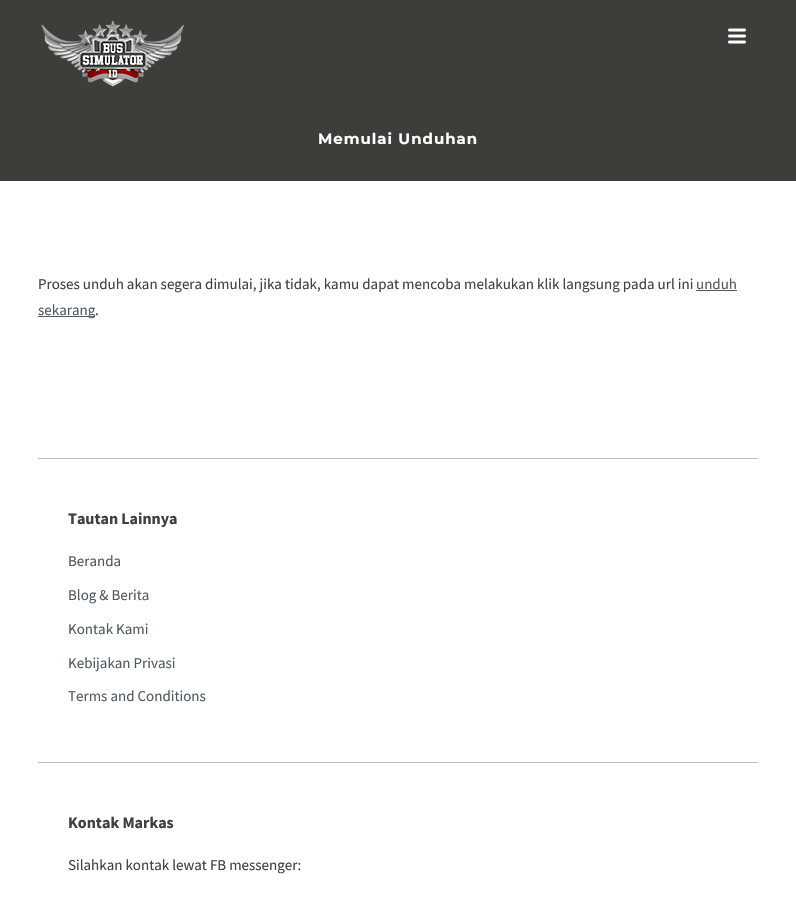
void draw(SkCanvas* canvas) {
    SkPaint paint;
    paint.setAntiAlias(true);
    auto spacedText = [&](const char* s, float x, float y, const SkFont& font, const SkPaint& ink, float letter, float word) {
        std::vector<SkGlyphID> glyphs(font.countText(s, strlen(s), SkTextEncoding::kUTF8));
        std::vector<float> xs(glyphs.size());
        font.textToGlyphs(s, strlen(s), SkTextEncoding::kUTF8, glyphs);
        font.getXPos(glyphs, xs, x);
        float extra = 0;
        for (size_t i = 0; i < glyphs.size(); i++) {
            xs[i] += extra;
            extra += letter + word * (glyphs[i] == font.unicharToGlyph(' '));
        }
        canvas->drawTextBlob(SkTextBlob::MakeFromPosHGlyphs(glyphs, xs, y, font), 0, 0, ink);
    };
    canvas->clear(0xFFFFFFFF);
    paint.setColor(0xFF3E3D3A);
    canvas->drawRect(SkRect::MakeXYWH(0, 0, 796, 181), paint);
    canvas->drawImageRect(SkImages::DeferredFromEncodedData(SkData::MakeFromFileName("img1.png")), SkRect::MakeXYWH(41, 20, 143, 67), SkSamplingOptions());
    canvas->drawImageRect(SkImages::DeferredFromEncodedData(SkData::MakeFromFileName("img2.png")), SkRect::MakeXYWH(728, 28, 18, 16), SkSamplingOptions());
    SkFont font1(fontMgr->matchFamilyStyle("Montserrat", SkFontStyle::Bold()), 15);
    font1.setSubpixel(true);
    paint.setColor(0xFFFFFFFF);
    spacedText("Memulai Unduhan", 318, 144, font1, paint, 1, 0);
    SkFont font2(fontMgr->matchFamilyStyle("Source Sans Pro", SkFontStyle::Normal()), 15);
    font2.setSubpixel(true);
    paint.setColor(0xFF404040);
    canvas->drawString("Proses unduh akan segera dimulai, jika tidak, kamu dapat mencoba melakukan klik langsung pada url ini", 38, 289, font2, paint);
    paint.setColor(0xFF515A63);
    canvas->drawString("unduh", 696, 289, font2, paint);
    canvas->drawRect(SkRect::MakeXYWH(696, 290, 41, 1), paint);
    canvas->drawRect(SkRect::MakeXYWH(38, 316, 57, 1), paint);
    canvas->drawString("sekarang", 38, 315, font2, paint);
    paint.setColor(0xFF404040);
    canvas->drawString(".", 95, 315, font2, paint);
    paint.setColor(0xFFBDC3C7);
    canvas->drawRect(SkRect::MakeXYWH(38, 458, 720, 1), paint);
    canvas->drawRect(SkRect::MakeXYWH(38, 762, 720, 1), paint);
    SkFont font3(fontMgr->matchFamilyStyle("Source Sans Pro", SkFontStyle::Bold()), 16);
    font3.setSubpixel(true);
    paint.setColor(0xFF404040);
    canvas->drawString("Tautan Lainnya", 68, 524, font3, paint);
    paint.setColor(0xFF515A63);
    canvas->drawString("Beranda", 68, 566, font2, paint);
    canvas->drawString("Blog & Berita", 68, 600, font2, paint);
    canvas->drawString("Kontak Kami", 68, 634, font2, paint);
    canvas->drawString("Kebijakan Privasi", 68, 668, font2, paint);
    canvas->drawString("Terms and Conditions", 68, 701, font2, paint);
    paint.setColor(0xFF404040);
    canvas->drawString("Kontak Markas", 68, 828, font3, paint);
    canvas->drawString("Silahkan kontak lewat FB messenger:", 68, 870, font2, paint);
}
